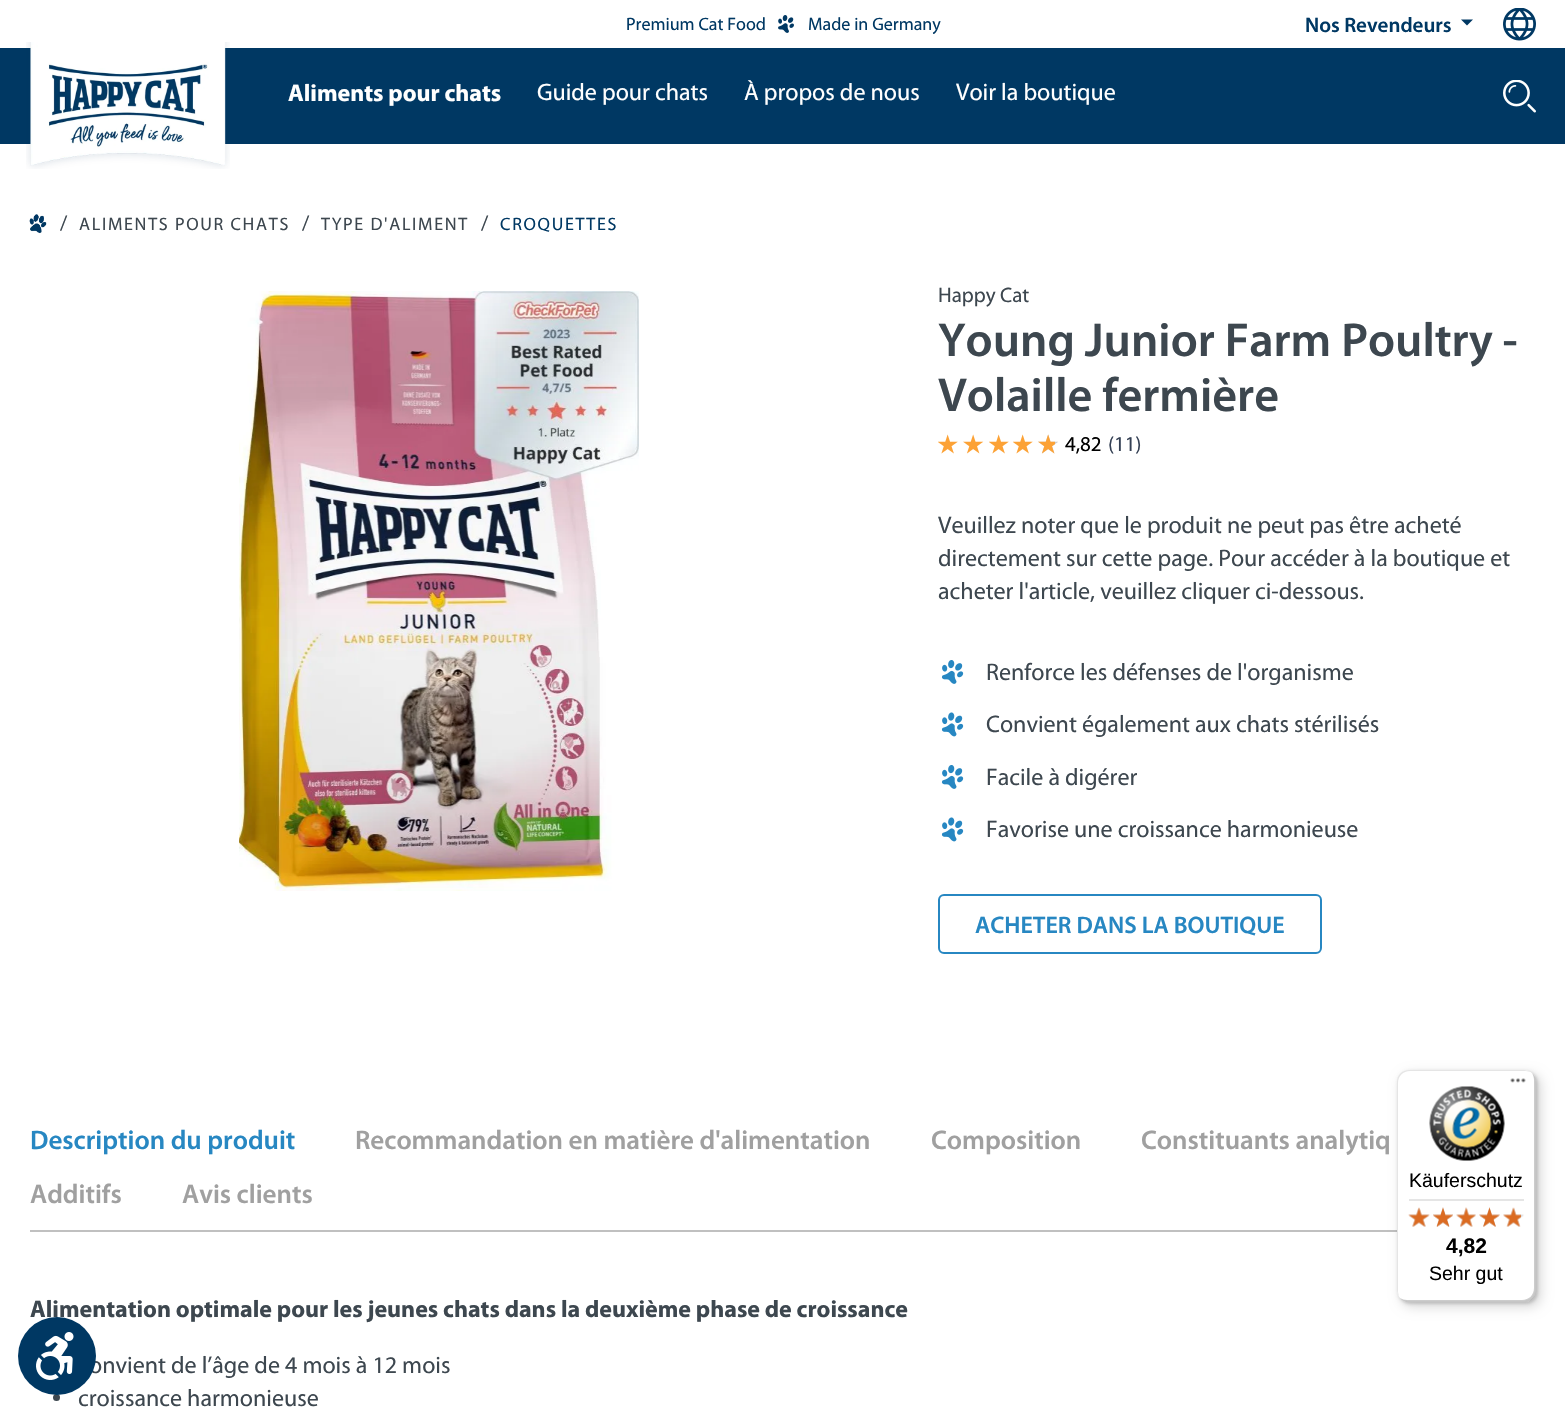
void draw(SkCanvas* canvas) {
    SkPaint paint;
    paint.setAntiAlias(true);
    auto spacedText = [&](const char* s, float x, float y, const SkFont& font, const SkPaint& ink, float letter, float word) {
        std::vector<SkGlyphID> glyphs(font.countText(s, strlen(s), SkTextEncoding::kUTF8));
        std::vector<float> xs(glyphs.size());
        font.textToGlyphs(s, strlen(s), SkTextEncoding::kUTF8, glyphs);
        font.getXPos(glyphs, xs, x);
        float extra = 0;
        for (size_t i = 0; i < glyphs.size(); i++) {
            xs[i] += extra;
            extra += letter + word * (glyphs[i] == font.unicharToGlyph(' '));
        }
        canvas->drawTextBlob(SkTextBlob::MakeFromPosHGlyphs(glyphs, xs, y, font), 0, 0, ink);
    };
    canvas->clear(0xFFFFFFFF);
    paint.setColor(0xFF003863);
    canvas->drawRect(SkRect::MakeXYWH(0, 48, 1565, 96), paint);
    SkFont font1(fontMgr->matchFamilyStyle("Myriad", SkFontStyle::Normal()), 18);
    font1.setSubpixel(true);
    canvas->drawString("Premium Cat Food", 626, 30, font1, paint);
    canvas->drawImageRect(SkImages::DeferredFromEncodedData(SkData::MakeFromFileName("img1.png")), SkRect::MakeXYWH(778, 15, 16, 18), SkSamplingOptions());
    canvas->drawString("Made in Germany", 808, 30, font1, paint);
    SkFont font2(fontMgr->matchFamilyStyle("Myriad", SkFontStyle(600, SkFontStyle::kNormal_Width, SkFontStyle::kUpright_Slant)), 21);
    font2.setSubpixel(true);
    canvas->drawString("Nos Revendeurs", 1305, 32, font2, paint);
    canvas->drawPath(SkPathBuilder().moveTo(1461, 19.5f).lineTo(1473, 19.5f).lineTo(1467, 25.5f).close().detach(), paint);
    canvas->drawImageRect(SkImages::DeferredFromEncodedData(SkData::MakeFromFileName("img2.png")), SkRect::MakeXYWH(1503, 8, 33, 33), SkSamplingOptions());
    canvas->drawImageRect(SkImages::DeferredFromEncodedData(SkData::MakeFromFileName("img3.png")), SkRect::MakeXYWH(26, 42, 204, 127), SkSamplingOptions());
    SkFont font3(fontMgr->matchFamilyStyle("Myriad", SkFontStyle::Bold()), 24);
    font3.setSubpixel(true);
    paint.setColor(0xFFFFFFFF);
    canvas->drawString("Aliments pour chats", 288, 101, font3, paint);
    SkFont font4(fontMgr->matchFamilyStyle("Myriad", SkFontStyle::Normal()), 24);
    font4.setSubpixel(true);
    canvas->drawString("Guide pour chats", 537, 100, font4, paint);
    canvas->drawString("À propos de nous", 744, 100, font4, paint);
    canvas->drawString("Voir la boutique", 956, 100, font4, paint);
    canvas->drawImageRect(SkImages::DeferredFromEncodedData(SkData::MakeFromFileName("img4.png")), SkRect::MakeXYWH(1503, 80, 33, 33), SkSamplingOptions());
    canvas->drawImageRect(SkImages::DeferredFromEncodedData(SkData::MakeFromFileName("img5.png")), SkRect::MakeXYWH(29, 214, 18, 20), SkSamplingOptions());
    SkFont font5(fontMgr->matchFamilyStyle("Myriad", SkFontStyle::Normal()), 21);
    font5.setSubpixel(true);
    paint.setColor(0xFF3D474F);
    canvas->drawString("/", 60, 230, font5, paint);
    spacedText("ALIMENTS POUR CHATS", 79, 230, font1, paint, 1.7f, 0);
    canvas->drawString("/", 302, 230, font5, paint);
    spacedText("TYPE D'ALIMENT", 321, 230, font1, paint, 1.7f, 0);
    canvas->drawString("/", 481, 230, font5, paint);
    paint.setColor(0xFF003863);
    spacedText("CROQUETTES", 500, 230, font1, paint, 1.7f, 0);
    canvas->drawImageRect(SkImages::DeferredFromEncodedData(SkData::MakeFromFileName("img6.png")), SkRect::MakeXYWH(239, 291, 400, 600), SkSamplingOptions());
    paint.setColor(0xFF3D474F);
    canvas->drawString("Happy Cat", 938, 302, font5, paint);
    SkFont font6(fontMgr->matchFamilyStyle("Myriad", SkFontStyle(600, SkFontStyle::kNormal_Width, SkFontStyle::kUpright_Slant)), 48);
    font6.setSubpixel(true);
    canvas->drawString("Young Junior Farm Poultry -", 938, 356, font6, paint);
    canvas->drawString("Volaille fermière", 938, 411, font6, paint);
    canvas->drawImageRect(SkImages::DeferredFromEncodedData(SkData::MakeFromFileName("img7.png")), SkRect::MakeXYWH(938, 434, 20, 20), SkSamplingOptions());
    canvas->drawImageRect(SkImages::DeferredFromEncodedData(SkData::MakeFromFileName("img8.png")), SkRect::MakeXYWH(963, 434, 21, 20), SkSamplingOptions());
    canvas->drawImageRect(SkImages::DeferredFromEncodedData(SkData::MakeFromFileName("img7.png")), SkRect::MakeXYWH(989, 434, 20, 20), SkSamplingOptions());
    canvas->drawImageRect(SkImages::DeferredFromEncodedData(SkData::MakeFromFileName("img7.png")), SkRect::MakeXYWH(1013, 434, 20, 20), SkSamplingOptions());
    canvas->drawImageRect(SkImages::DeferredFromEncodedData(SkData::MakeFromFileName("img9.png")), SkRect::MakeXYWH(1038, 434, 20, 20), SkSamplingOptions());
    canvas->drawImageRect(SkImages::DeferredFromEncodedData(SkData::MakeFromFileName("img10.png")), SkRect::MakeXYWH(1038, 434, 17, 20), SkSamplingOptions());
    paint.setColor(0xFF000000);
    canvas->drawString("4,82", 1065, 451, font5, paint);
    paint.setColor(0xFF344054);
    canvas->drawString("(11)", 1108, 451, font5, paint);
    paint.setColor(0xFF3D474F);
    canvas->drawString("Veuillez noter que le produit ne peut pas être acheté", 938, 533, font4, paint);
    canvas->drawString("directement sur cette page. Pour accéder à la boutique et", 938, 566, font4, paint);
    canvas->drawString("acheter l'article, veuillez cliquer ci-dessous.", 938, 599, font4, paint);
    canvas->drawImageRect(SkImages::DeferredFromEncodedData(SkData::MakeFromFileName("img11.png")), SkRect::MakeXYWH(941, 660, 23, 24), SkSamplingOptions());
    canvas->drawString("Renforce les défenses de l'organisme", 986, 680, font4, paint);
    canvas->drawImageRect(SkImages::DeferredFromEncodedData(SkData::MakeFromFileName("img12.png")), SkRect::MakeXYWH(941, 712, 23, 25), SkSamplingOptions());
    canvas->drawString("Convient également aux chats stérilisés", 986, 732, font4, paint);
    canvas->drawImageRect(SkImages::DeferredFromEncodedData(SkData::MakeFromFileName("img11.png")), SkRect::MakeXYWH(941, 765, 23, 24), SkSamplingOptions());
    canvas->drawString("Facile à digérer", 986, 785, font4, paint);
    canvas->drawImageRect(SkImages::DeferredFromEncodedData(SkData::MakeFromFileName("img12.png")), SkRect::MakeXYWH(941, 817, 23, 25), SkSamplingOptions());
    canvas->drawString("Favorise une croissance harmonieuse", 986, 837, font4, paint);
    paint.setStyle(SkPaint::kStroke_Style);
    paint.setStrokeWidth(2);
    paint.setColor(0xFF2787C2);
    canvas->drawRoundRect(SkRect::MakeXYWH(939, 895, 382, 58), 5, 5, paint);
    SkFont font7(fontMgr->matchFamilyStyle("Myriad", SkFontStyle(600, SkFontStyle::kNormal_Width, SkFontStyle::kUpright_Slant)), 24);
    font7.setSubpixel(true);
    paint.setStyle(SkPaint::kFill_Style);
    canvas->drawString("ACHETER DANS LA BOUTIQUE", 975, 933, font7, paint);
    paint.setColor(0xFFC0C0C0);
    canvas->drawRect(SkRect::MakeXYWH(30, 1230, 1367, 2), paint);
    SkFont font8(fontMgr->matchFamilyStyle("Myriad", SkFontStyle(600, SkFontStyle::kNormal_Width, SkFontStyle::kUpright_Slant)), 27);
    font8.setSubpixel(true);
    paint.setColor(0xFF2787C2);
    canvas->drawString("Description du produit", 30, 1149, font8, paint);
    paint.setColor(0xFFA0A0A0);
    canvas->drawString("Recommandation en matière d'alimentation", 355, 1149, font8, paint);
    canvas->drawString("Composition", 931, 1149, font8, paint);
    canvas->drawString("Constituants analytiq", 1141, 1149, font8, paint);
    canvas->drawString("Additifs", 30, 1203, font8, paint);
    canvas->drawString("Avis clients", 182, 1203, font8, paint);
    paint.setColor(0xFF3D474F);
    canvas->drawString("Alimentation optimale pour les jeunes chats dans la deuxième phase de croissance", 30, 1317, font3, paint);
    canvas->drawString("onvient de l’âge de 4 mois à 12 mois", 89, 1373, font4, paint);
    canvas->drawCircle(56.5f, 1397.5f, 3.5f, paint);
    canvas->drawString("croissance harmonieuse", 78, 1406, font4, paint);
    paint.setColor(0x26000000);
    paint.setMaskFilter(SkMaskFilter::MakeBlur(kNormal_SkBlurStyle, 6));
    canvas->drawRoundRect(SkRect::MakeXYWH(1401, 1074, 140, 233), 12, 12, paint);
    paint.setMaskFilter(nullptr);
    paint.setMaskFilter(SkMaskFilter::MakeBlur(kNormal_SkBlurStyle, 1.5f));
    canvas->drawRoundRect(SkRect::MakeXYWH(1398, 1071, 140, 233), 12, 12, paint);
    paint.setMaskFilter(nullptr);
    paint.setColor(0xFFFFFFFF);
    canvas->drawRoundRect(SkRect::MakeXYWH(1397, 1070, 139, 232), 12, 12, paint);
    paint.setColor(0xFFE5E5E5);
    canvas->drawPath(SkPathBuilder().moveTo(1410, 1071).lineTo(1526, 1071).lineTo(1531, 1072).cubicTo(1529, 1071, 1526, 1070, 1524, 1070).lineTo(1409, 1070).cubicTo(1402, 1070, 1397, 1075, 1397, 1082).lineTo(1397, 1290).cubicTo(1397, 1292, 1398, 1295, 1399, 1297).lineTo(1398, 1292).lineTo(1398, 1083).cubicTo(1398, 1076, 1403, 1071, 1410, 1071).close().detach(), paint);
    paint.setColor(0x33000000);
    canvas->drawPath(SkPathBuilder().moveTo(1400, 1298).cubicTo(1402, 1300, 1405, 1302, 1409, 1302).lineTo(1524, 1302).cubicTo(1531, 1302, 1536, 1297, 1536, 1290).lineTo(1536, 1082).cubicTo(1536, 1078, 1534, 1075, 1532, 1073).cubicTo(1533, 1075, 1534, 1077, 1534, 1080).lineTo(1534, 1288).cubicTo(1534, 1295, 1529, 1300, 1522, 1300).lineTo(1407, 1300).cubicTo(1404, 1300, 1402, 1299, 1400, 1298).close().detach(), paint);
    paint.setColor(0x33323232);
    canvas->drawPath(SkPathBuilder().moveTo(1401, 1299).cubicTo(1403, 1301, 1406, 1302, 1409, 1302).lineTo(1524, 1302).cubicTo(1531, 1302, 1536, 1297, 1536, 1290).lineTo(1536, 1082).cubicTo(1536, 1079, 1535, 1076, 1533, 1074).cubicTo(1534, 1076, 1535, 1078, 1535, 1081).lineTo(1535, 1289).cubicTo(1535, 1296, 1530, 1301, 1523, 1301).lineTo(1408, 1301).cubicTo(1405, 1301, 1403, 1300, 1401, 1299).close().detach(), paint);
    paint.setColor(0x4DFFFFFF);
    canvas->drawPath(SkPathBuilder().moveTo(1401, 1299).cubicTo(1403, 1301, 1406, 1302, 1409, 1302).lineTo(1524, 1302).cubicTo(1531, 1302, 1536, 1297, 1536, 1290).lineTo(1536, 1082).cubicTo(1536, 1079, 1535, 1076, 1533, 1074).cubicTo(1534, 1076, 1535, 1078, 1535, 1081).lineTo(1535, 1289).cubicTo(1535, 1296, 1530, 1301, 1523, 1301).lineTo(1408, 1301).cubicTo(1405, 1301, 1403, 1300, 1401, 1299).close().detach(), paint);
    canvas->drawImageRect(SkImages::DeferredFromEncodedData(SkData::MakeFromFileName("img13.png")), SkRect::MakeXYWH(1510, 1078, 16, 5), SkSamplingOptions());
    canvas->drawImageRect(SkImages::DeferredFromEncodedData(SkData::MakeFromFileName("img14.png")), SkRect::MakeXYWH(1429, 1086, 76, 75), SkSamplingOptions());
    SkFont font9(fontMgr->matchFamilyStyle("Liberation Sans", SkFontStyle::Normal()), 19.5f);
    font9.setSubpixel(true);
    paint.setColor(0xFF000000);
    canvas->drawString("Käuferschutz", 1409, 1187, font9, paint);
    paint.setColor(0xFFE5E5E5);
    canvas->drawRect(SkRect::MakeXYWH(1409, 1199, 115, 2), paint);
    canvas->drawImageRect(SkImages::DeferredFromEncodedData(SkData::MakeFromFileName("img20.png")), SkRect::MakeXYWH(1409, 1208, 20, 19), SkSamplingOptions());
    canvas->drawImageRect(SkImages::DeferredFromEncodedData(SkData::MakeFromFileName("img15.png")), SkRect::MakeXYWH(1408, 1207, 22, 20), SkSamplingOptions());
    canvas->drawImageRect(SkImages::DeferredFromEncodedData(SkData::MakeFromFileName("img21.png")), SkRect::MakeXYWH(1433, 1207, 20, 20), SkSamplingOptions());
    canvas->drawImageRect(SkImages::DeferredFromEncodedData(SkData::MakeFromFileName("img16.png")), SkRect::MakeXYWH(1433, 1207, 20, 20), SkSamplingOptions());
    canvas->drawImageRect(SkImages::DeferredFromEncodedData(SkData::MakeFromFileName("img22.png")), SkRect::MakeXYWH(1456, 1207, 20, 20), SkSamplingOptions());
    canvas->drawImageRect(SkImages::DeferredFromEncodedData(SkData::MakeFromFileName("img17.png")), SkRect::MakeXYWH(1456, 1207, 20, 20), SkSamplingOptions());
    canvas->drawImageRect(SkImages::DeferredFromEncodedData(SkData::MakeFromFileName("img23.png")), SkRect::MakeXYWH(1479, 1207, 21, 20), SkSamplingOptions());
    canvas->drawImageRect(SkImages::DeferredFromEncodedData(SkData::MakeFromFileName("img18.png")), SkRect::MakeXYWH(1479, 1207, 21, 20), SkSamplingOptions());
    canvas->drawImageRect(SkImages::DeferredFromEncodedData(SkData::MakeFromFileName("img24.png")), SkRect::MakeXYWH(1503, 1208, 21, 19), SkSamplingOptions());
    canvas->drawImageRect(SkImages::DeferredFromEncodedData(SkData::MakeFromFileName("img19.png")), SkRect::MakeXYWH(1503, 1207, 18, 20), SkSamplingOptions());
    SkFont font10(fontMgr->matchFamilyStyle("Liberation Sans", SkFontStyle::Bold()), 21);
    font10.setSubpixel(true);
    paint.setColor(0xFF000000);
    canvas->drawString("4,82", 1446, 1253, font10, paint);
    canvas->drawString("Sehr gut", 1429, 1280, font9, paint);
    paint.setColor(0xFF003863);
    canvas->drawCircle(57, 1356, 39, paint);
    canvas->drawImageRect(SkImages::DeferredFromEncodedData(SkData::MakeFromFileName("img25.png")), SkRect::MakeXYWH(36, 1332, 38, 48), SkSamplingOptions());
}
